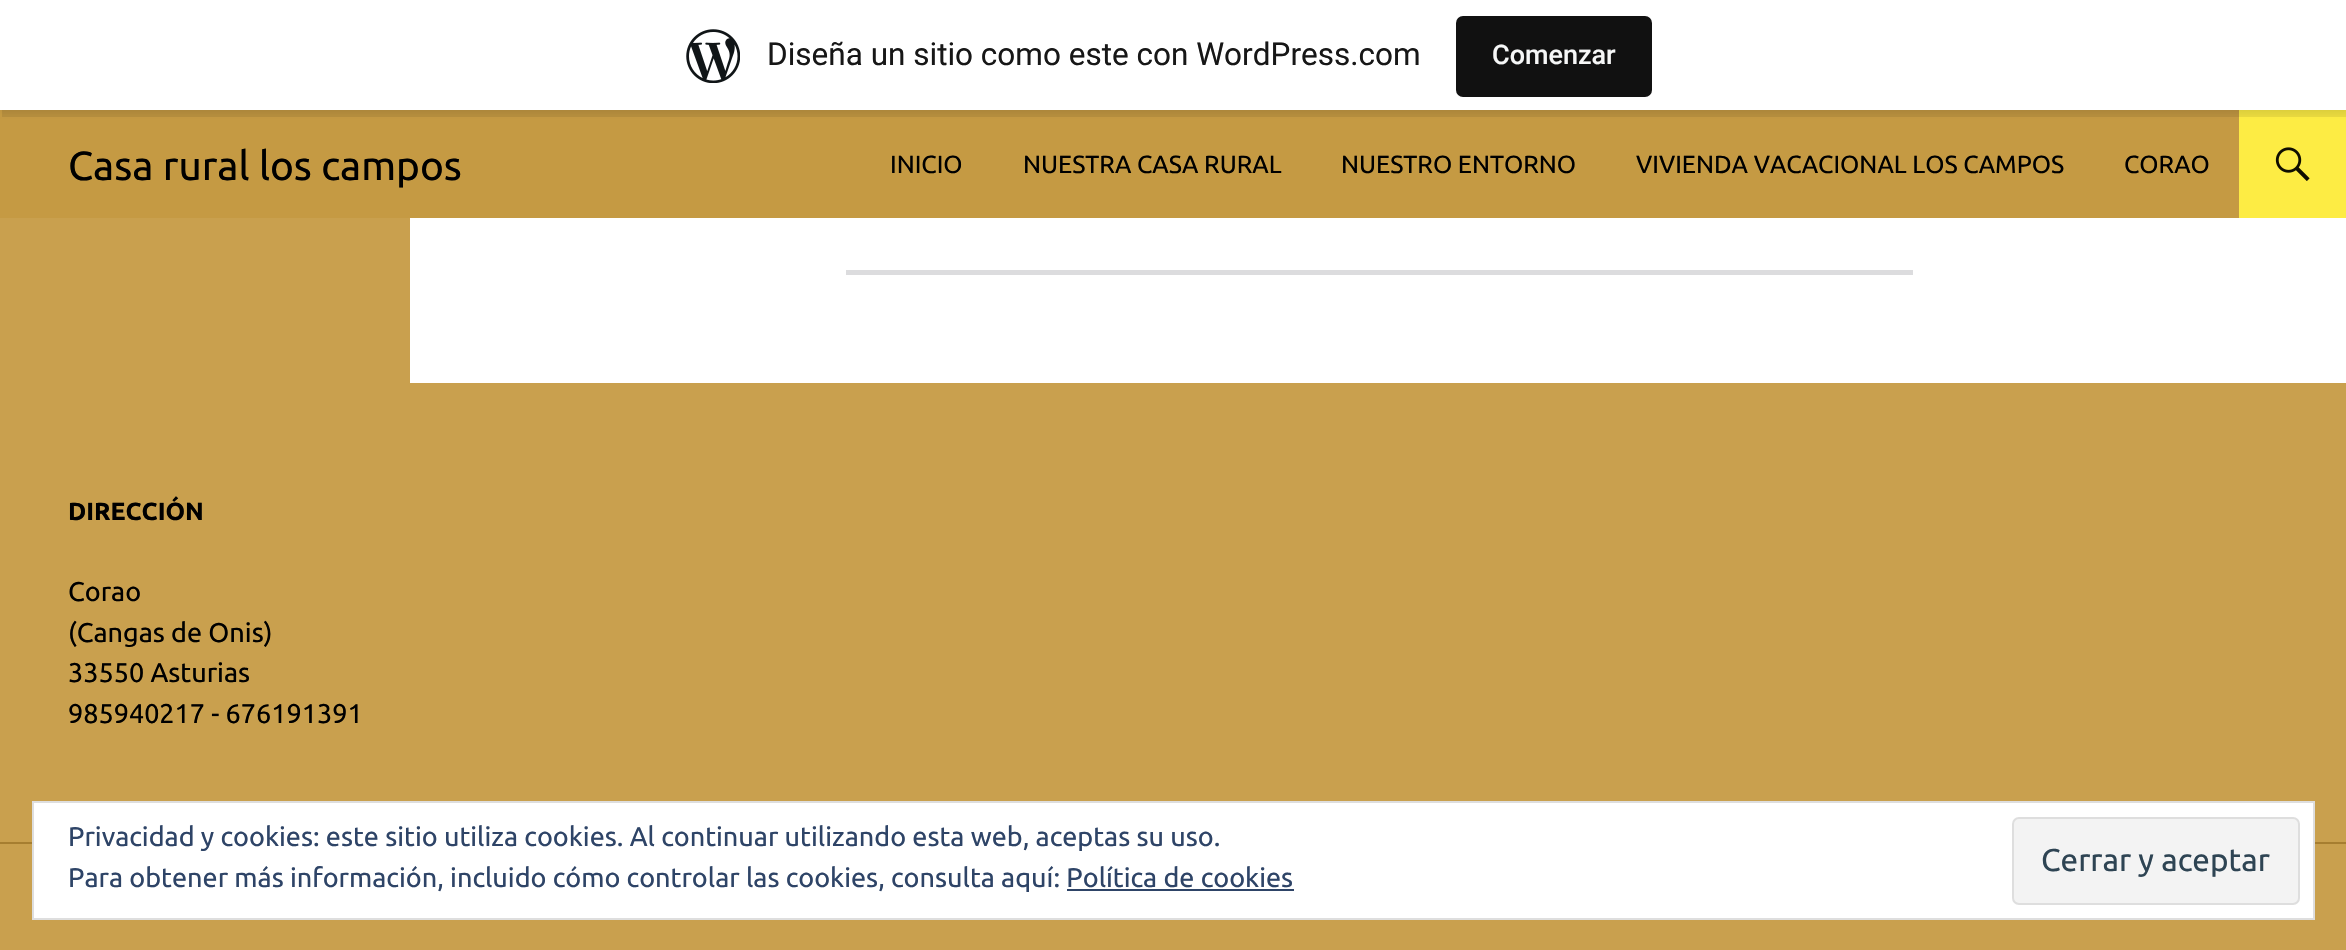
void draw(SkCanvas* canvas) {
    SkPaint paint;
    paint.setAntiAlias(true);
    canvas->clear(0xFFFFFFFF);
    paint.setColor(0xFFC59A43);
    canvas->drawRect(SkRect::MakeXYWH(0, 110, 2239, 108), paint);
    paint.setColor(0xFFFDEC44);
    canvas->drawRect(SkRect::MakeXYWH(2239, 110, 107, 108), paint);
    paint.setColor(0x0D000000);
    paint.setMaskFilter(SkMaskFilter::MakeBlur(kNormal_SkBlurStyle, 2));
    canvas->drawRect(SkRect::MakeXYWH(0, 2, 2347, 111), paint);
    paint.setMaskFilter(nullptr);
    paint.setColor(0x14000000);
    canvas->drawPath(SkPathBuilder().moveTo(2, 110).lineTo(2, 117).lineTo(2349, 117).lineTo(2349, 7).lineTo(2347, 7).lineTo(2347, 110).close().detach(), paint);
    paint.setColor(0xFFFFFFFF);
    canvas->drawRect(SkRect::MakeXYWH(0, 0, 2346, 110), paint);
    canvas->drawImageRect(SkImages::DeferredFromEncodedData(SkData::MakeFromFileName("img1.png")), SkRect::MakeXYWH(686, 29, 54, 54), SkSamplingOptions());
    SkFont font1(fontMgr->matchFamilyStyle("Roboto", SkFontStyle::Normal()), 31.5f);
    font1.setSubpixel(true);
    paint.setColor(0xFF171717);
    canvas->drawString("Diseña un sitio como este con WordPress.com", 767, 65, font1, paint);
    paint.setColor(0xFF111111);
    canvas->drawRoundRect(SkRect::MakeXYWH(1456, 16, 196, 81), 7, 7, paint);
    SkFont font2(fontMgr->matchFamilyStyle("Roboto", SkFontStyle(500, SkFontStyle::kNormal_Width, SkFontStyle::kUpright_Slant)), 27);
    font2.setSubpixel(true);
    paint.setColor(0xFFF6F7F7);
    canvas->drawString("Comenzar", 1492, 64, font2, paint);
    SkFont font3(fontMgr->matchFamilyStyle("Ubuntu", SkFontStyle::Normal()), 40.5f);
    font3.setSubpixel(true);
    paint.setColor(0xFF000000);
    canvas->drawString("Casa rural los campos", 68, 180, font3, paint);
    SkFont font4(fontMgr->matchFamilyStyle("Ubuntu", SkFontStyle::Normal()), 24.75f);
    font4.setSubpixel(true);
    canvas->drawString("INICIO", 890, 173, font4, paint);
    canvas->drawString("NUESTRA CASA RURAL", 1023, 173, font4, paint);
    canvas->drawString("NUESTRO ENTORNO", 1341, 173, font4, paint);
    canvas->drawString("VIVIENDA VACACIONAL LOS CAMPOS", 1636, 173, font4, paint);
    canvas->drawString("CORAO", 2124, 173, font4, paint);
    canvas->drawImageRect(SkImages::DeferredFromEncodedData(SkData::MakeFromFileName("img2.png")), SkRect::MakeXYWH(2275, 147, 35, 34), SkSamplingOptions());
    paint.setColor(0xFFC9A04E);
    canvas->drawRect(SkRect::MakeXYWH(0, 218, 410, 165), paint);
    paint.setColor(0xFFDCDCDE);
    canvas->drawRect(SkRect::MakeXYWH(846, 270, 1067, 5), paint);
    paint.setColor(0xFFC9A04E);
    canvas->drawRect(SkRect::MakeXYWH(0, 383, 2346, 567), paint);
    SkFont font5(fontMgr->matchFamilyStyle("Ubuntu", SkFontStyle::Bold()), 24.75f);
    font5.setSubpixel(true);
    paint.setColor(0xFF000000);
    canvas->drawString("DIRECCIÓN", 68, 520, font5, paint);
    SkFont font6(fontMgr->matchFamilyStyle("Ubuntu", SkFontStyle::Normal()), 27);
    font6.setSubpixel(true);
    canvas->drawString("Corao", 68, 601, font6, paint);
    canvas->drawString("(Cangas de Onis)", 68, 642, font6, paint);
    canvas->drawString("33550 Asturias", 68, 682, font6, paint);
    canvas->drawString("985940217 - 676191391", 68, 723, font6, paint);
    paint.setColor(0xFFA67E30);
    canvas->drawRect(SkRect::MakeXYWH(0, 842, 2346, 2), paint);
    paint.setColor(0xFFFFFFFF);
    canvas->drawRect(SkRect::MakeXYWH(33, 802, 2281, 117), paint);
    paint.setStyle(SkPaint::kStroke_Style);
    paint.setStrokeWidth(2);
    paint.setColor(0xFFDEDEDE);
    canvas->drawRect(SkRect::MakeXYWH(33, 802, 2281, 117), paint);
    paint.setStyle(SkPaint::kFill_Style);
    paint.setColor(0xFF2E4467);
    canvas->drawString("Privacidad y cookies: este sitio utiliza cookies. Al continuar utilizando esta web, aceptas su uso.", 68, 846, font6, paint);
    canvas->drawString("Para obtener más información, incluido cómo controlar las cookies, consulta aquí: Política de cookies", 68, 887, font6, paint);
    paint.setColor(0xFFF3F3F3);
    canvas->drawRoundRect(SkRect::MakeXYWH(2013, 818, 286, 86), 6, 6, paint);
    paint.setStyle(SkPaint::kStroke_Style);
    paint.setColor(0xFFDEDEDE);
    canvas->drawRoundRect(SkRect::MakeXYWH(2013, 818, 286, 86), 6, 6, paint);
    SkFont font7(fontMgr->matchFamilyStyle("Ubuntu", SkFontStyle::Normal()), 31.5f);
    font7.setSubpixel(true);
    paint.setStyle(SkPaint::kFill_Style);
    paint.setColor(0xFF2E4453);
    canvas->drawString("Cerrar y aceptar", 2041, 871, font7, paint);
    paint.setColor(0xFF2E4467);
    canvas->drawRect(SkRect::MakeXYWH(1067, 889, 227, 2), paint);
}
